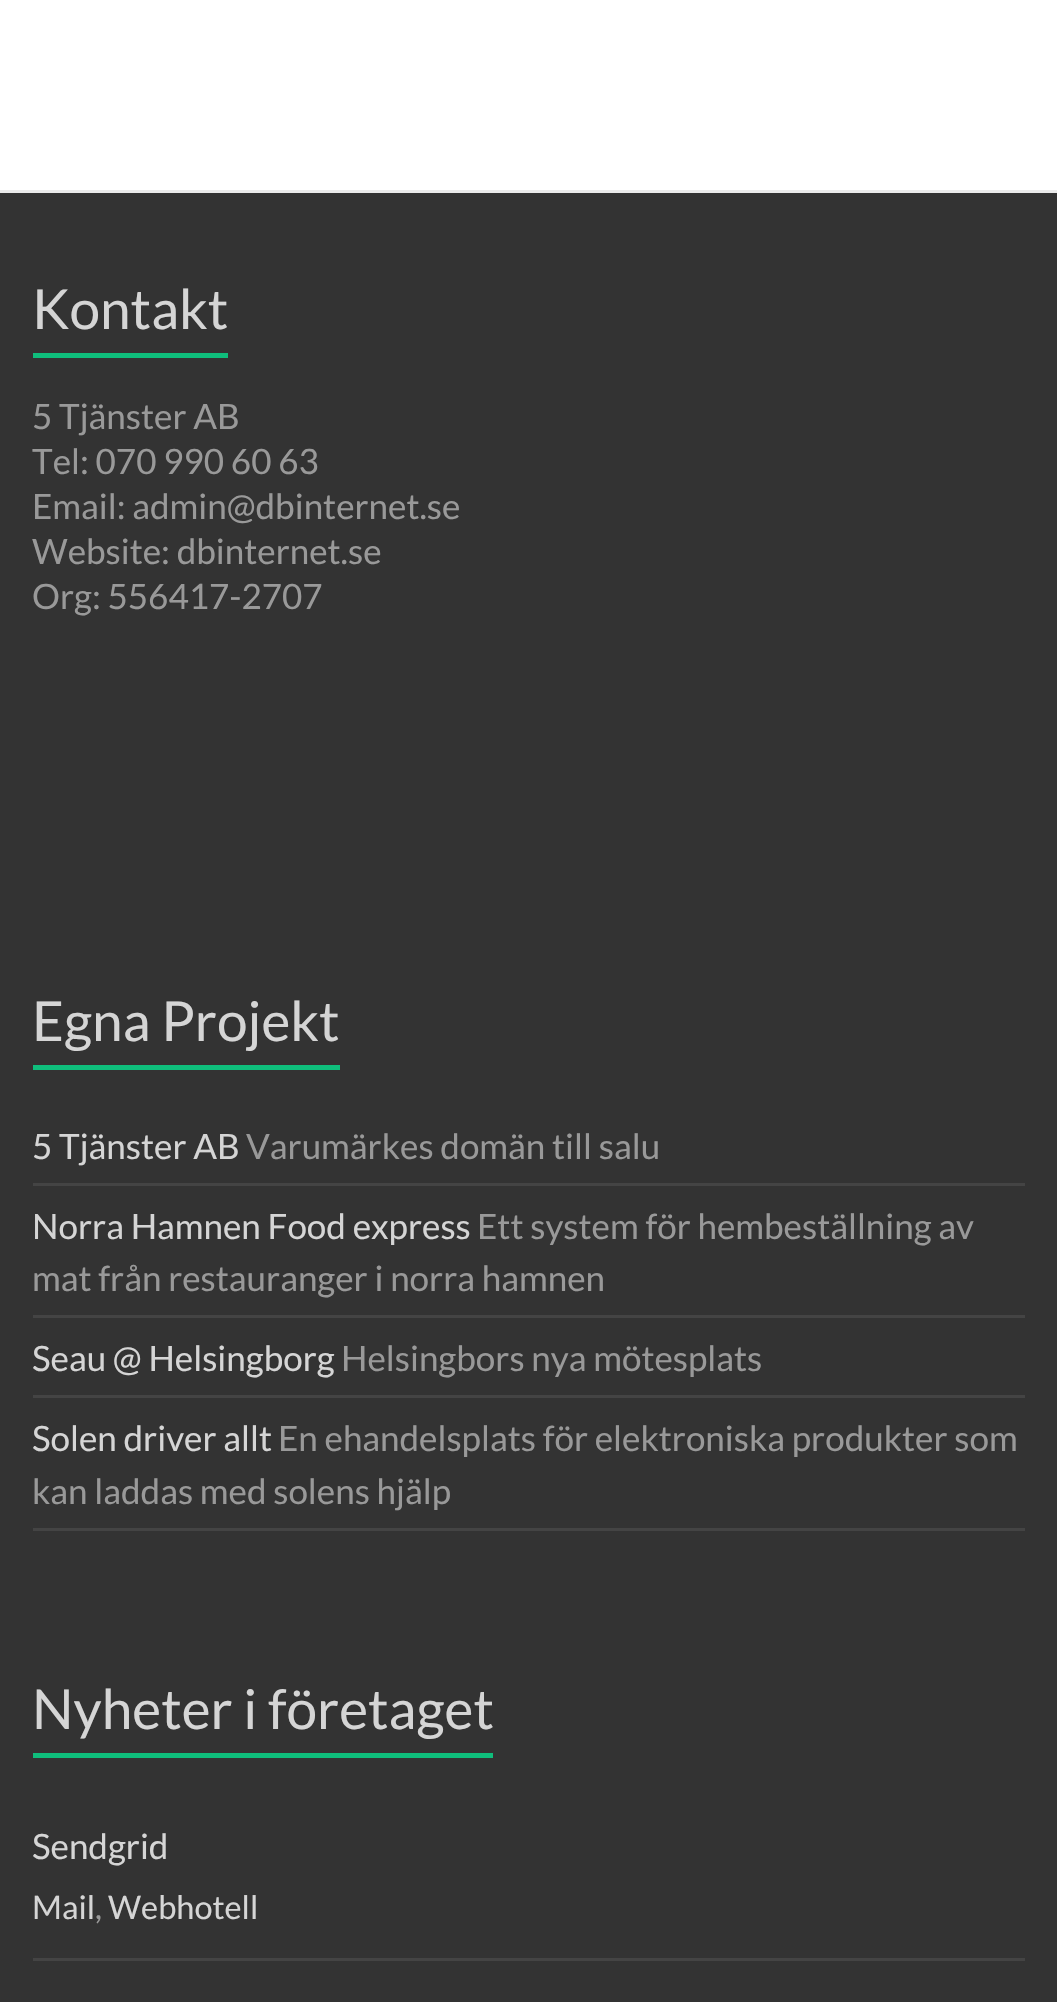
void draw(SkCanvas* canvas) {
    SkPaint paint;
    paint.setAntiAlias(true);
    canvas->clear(0xFFFFFFFF);
    paint.setColor(0xFF333333);
    canvas->drawRect(SkRect::MakeXYWH(0, 193, 1057, 1809), paint);
    paint.setColor(0xFFEAEAEA);
    canvas->drawRect(SkRect::MakeXYWH(0, 190, 1057, 3), paint);
    SkFont font1(fontMgr->matchFamilyStyle("Lato", SkFontStyle::Normal()), 55);
    font1.setSubpixel(true);
    paint.setColor(0xFFD5D5D5);
    canvas->drawString("Kontakt", 32, 329, font1, paint);
    paint.setColor(0xFF0FBE7C);
    canvas->drawRect(SkRect::MakeXYWH(33, 353, 195, 5), paint);
    SkFont font2(fontMgr->matchFamilyStyle("Lato", SkFontStyle::Normal()), 35);
    font2.setSubpixel(true);
    paint.setColor(0xFF999999);
    canvas->drawString("5 Tjänster AB", 32, 429, font2, paint);
    canvas->drawString("Tel: 070 990 60 63", 32, 474, font2, paint);
    canvas->drawString("Email: admin@dbinternet.se", 32, 519, font2, paint);
    canvas->drawString("Website: dbinternet.se", 32, 564, font2, paint);
    canvas->drawString("Org: 556417-2707", 32, 609, font2, paint);
    paint.setColor(0xFFD5D5D5);
    canvas->drawString("Egna Projekt", 32, 1041, font1, paint);
    paint.setColor(0xFF0FBE7C);
    canvas->drawRect(SkRect::MakeXYWH(33, 1065, 307, 5), paint);
    paint.setColor(0xFF444444);
    canvas->drawRect(SkRect::MakeXYWH(33, 1183, 992, 3), paint);
    paint.setColor(0xFFD5D5D5);
    canvas->drawString("5 Tjänster AB", 32, 1159, font2, paint);
    paint.setColor(0xFF999999);
    canvas->drawString("Varumärkes domän till salu", 246, 1159, font2, paint);
    paint.setColor(0xFF444444);
    canvas->drawRect(SkRect::MakeXYWH(33, 1315, 992, 3), paint);
    paint.setColor(0xFFD5D5D5);
    canvas->drawString("Norra Hamnen Food express", 32, 1239, font2, paint);
    paint.setColor(0xFF999999);
    canvas->drawString("Ett system för hembeställning av", 477, 1239, font2, paint);
    canvas->drawString("mat från restauranger i norra hamnen", 32, 1291, font2, paint);
    paint.setColor(0xFF444444);
    canvas->drawRect(SkRect::MakeXYWH(33, 1395, 992, 3), paint);
    paint.setColor(0xFFD5D5D5);
    canvas->drawString("Seau @ Helsingborg", 32, 1371, font2, paint);
    paint.setColor(0xFF999999);
    canvas->drawString("Helsingbors nya mötesplats", 341, 1371, font2, paint);
    paint.setColor(0xFF444444);
    canvas->drawRect(SkRect::MakeXYWH(33, 1528, 992, 3), paint);
    paint.setColor(0xFFD5D5D5);
    canvas->drawString("Solen driver allt", 32, 1451, font2, paint);
    paint.setColor(0xFF999999);
    canvas->drawString("En ehandelsplats för elektroniska produkter som", 278, 1451, font2, paint);
    canvas->drawString("kan laddas med solens hjälp", 32, 1504, font2, paint);
    paint.setColor(0xFFD5D5D5);
    canvas->drawString("Nyheter i företaget", 32, 1729, font1, paint);
    paint.setColor(0xFF0FBE7C);
    canvas->drawRect(SkRect::MakeXYWH(33, 1753, 460, 5), paint);
    paint.setColor(0xFF444444);
    canvas->drawRect(SkRect::MakeXYWH(33, 1958, 992, 3), paint);
    paint.setColor(0xFFD5D5D5);
    canvas->drawString("Sendgrid", 32, 1859, font2, paint);
    SkFont font3(fontMgr->matchFamilyStyle("Lato", SkFontStyle::Normal()), 32.5f);
    font3.setSubpixel(true);
    canvas->drawString("Mail", 32, 1919, font3, paint);
    paint.setColor(0xFF999999);
    canvas->drawString(",", 95, 1919, font3, paint);
    paint.setColor(0xFFD5D5D5);
    canvas->drawString("Webhotell", 108, 1919, font3, paint);
}
